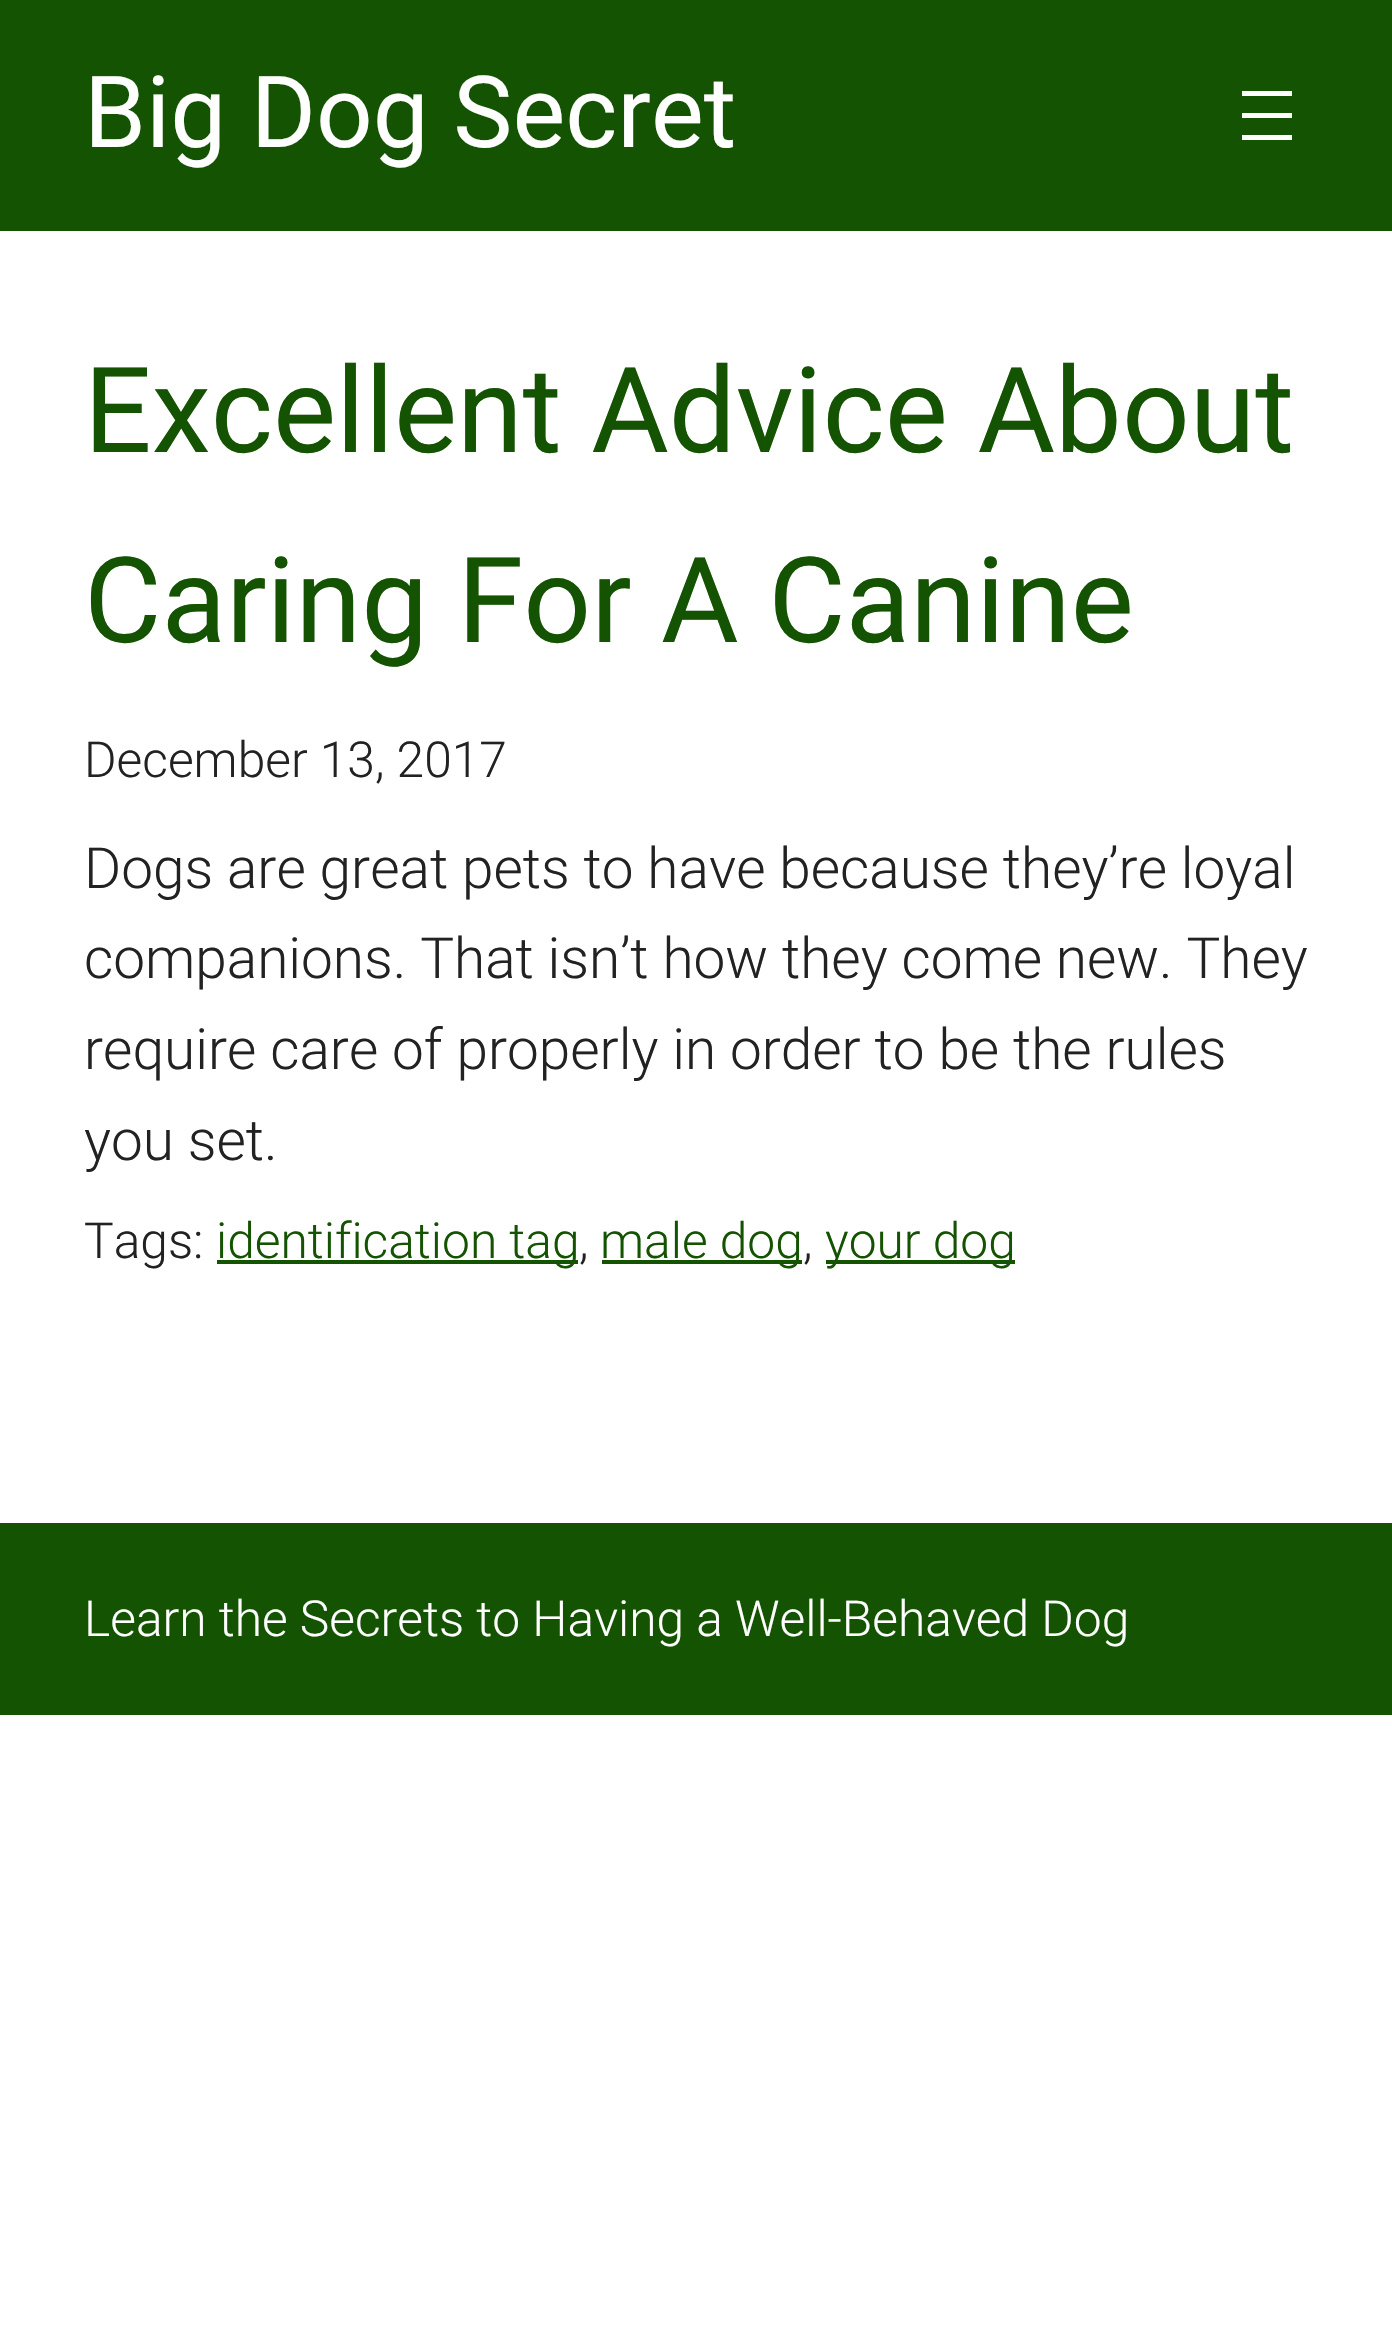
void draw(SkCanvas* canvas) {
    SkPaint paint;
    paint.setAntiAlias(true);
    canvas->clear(0xFFFFFFFF);
    paint.setColor(0xFF145301);
    canvas->drawRect(SkRect::MakeXYWH(0, 0, 1392, 231), paint);
    SkFont font1(fontMgr->matchFamilyStyle("Roboto", SkFontStyle::Normal()), 99.5f);
    font1.setSubpixel(true);
    paint.setColor(0xFFFFFFFF);
    canvas->drawString("Big Dog Secret", 84, 147, font1, paint);
    canvas->drawRect(SkRect::MakeXYWH(1242, 91, 50, 5), paint);
    canvas->drawRect(SkRect::MakeXYWH(1242, 113, 50, 5), paint);
    canvas->drawRect(SkRect::MakeXYWH(1242, 135, 50, 5), paint);
    SkFont font2(fontMgr->matchFamilyStyle("Roboto", SkFontStyle::Normal()), 119);
    font2.setSubpixel(true);
    paint.setColor(0xFF145301);
    canvas->drawString("Excellent Advice About", 84, 452, font2, paint);
    canvas->drawString("Caring For A Canine", 84, 642, font2, paint);
    SkFont font3(fontMgr->matchFamilyStyle("Roboto", SkFontStyle(300, SkFontStyle::kNormal_Width, SkFontStyle::kUpright_Slant)), 49.7f);
    font3.setSubpixel(true);
    paint.setColor(0xFF222222);
    canvas->drawString("December 13, 2017", 84, 777, font3, paint);
    SkFont font4(fontMgr->matchFamilyStyle("Roboto", SkFontStyle(300, SkFontStyle::kNormal_Width, SkFontStyle::kUpright_Slant)), 56.7f);
    font4.setSubpixel(true);
    canvas->drawString("Dogs are great pets to have because they’re loyal", 84, 888, font4, paint);
    canvas->drawString("companions. That isn’t how they come new. They", 84, 978, font4, paint);
    canvas->drawString("require care of properly in order to be the rules", 84, 1069, font4, paint);
    canvas->drawString("you set.", 84, 1160, font4, paint);
    canvas->drawString("Tags:", 84, 1258, font3, paint);
    paint.setColor(0xFF145301);
    canvas->drawRect(SkRect::MakeXYWH(217, 1260, 361, 4), paint);
    canvas->drawString("identification tag", 216, 1258, font3, paint);
    paint.setColor(0xFF222222);
    canvas->drawString(",", 579, 1258, font3, paint);
    paint.setColor(0xFF145301);
    canvas->drawRect(SkRect::MakeXYWH(602, 1260, 200, 4), paint);
    canvas->drawString("male dog", 600, 1258, font3, paint);
    paint.setColor(0xFF222222);
    canvas->drawString(",", 803, 1258, font3, paint);
    paint.setColor(0xFF145301);
    canvas->drawRect(SkRect::MakeXYWH(826, 1260, 189, 4), paint);
    canvas->drawString("your dog", 825, 1258, font3, paint);
    canvas->drawRect(SkRect::MakeXYWH(0, 1523, 1392, 192), paint);
    paint.setColor(0xFFFFFFFF);
    canvas->drawString("Learn the Secrets to Having a Well-Behaved Dog", 84, 1636, font3, paint);
}
